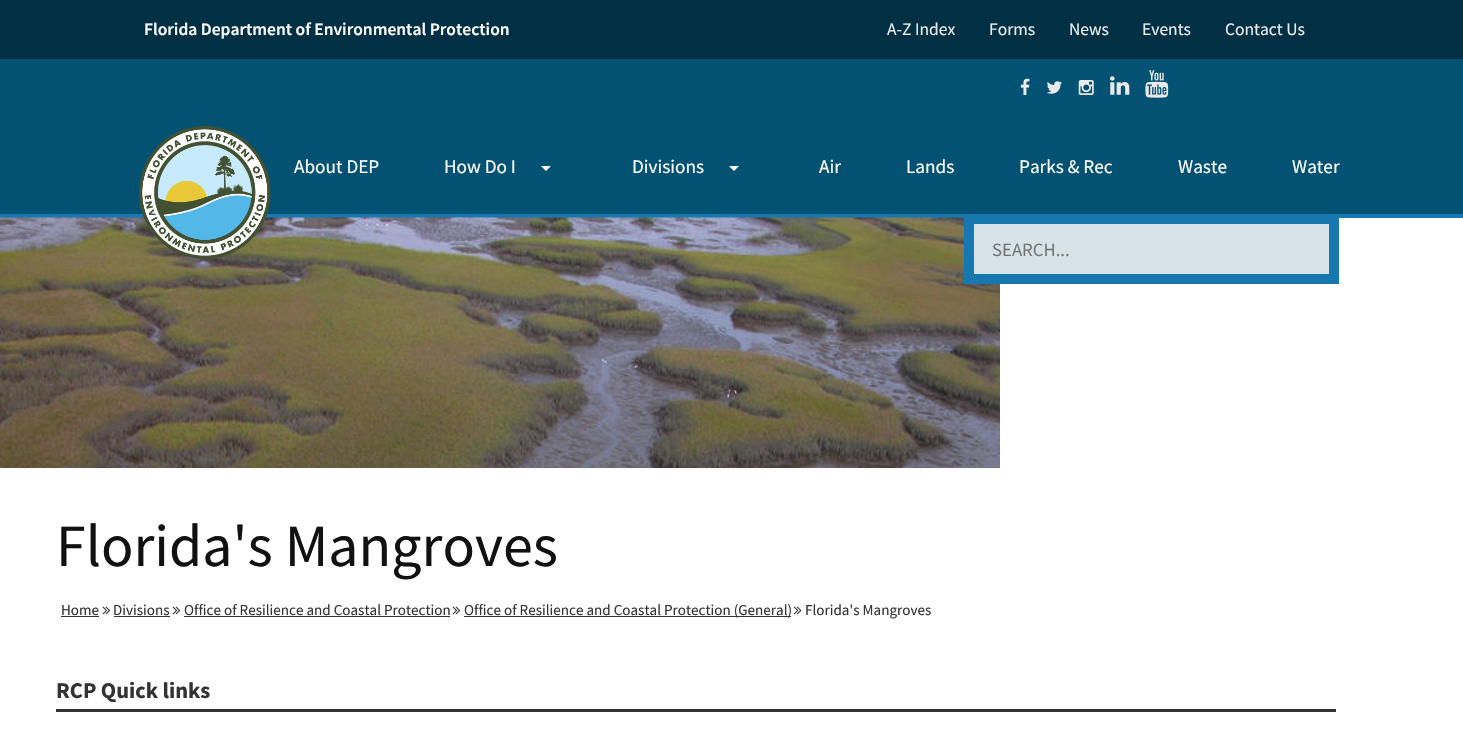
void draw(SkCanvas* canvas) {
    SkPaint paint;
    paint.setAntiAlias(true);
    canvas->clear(0xFFFFFFFF);
    paint.setColor(0xFF045273);
    canvas->drawRect(SkRect::MakeXYWH(0, 59, 1463, 155), paint);
    paint.setColor(0xFF1678AF);
    canvas->drawRect(SkRect::MakeXYWH(0, 214, 1463, 4), paint);
    paint.setColor(0xFF013044);
    canvas->drawRect(SkRect::MakeXYWH(0, 0, 1463, 59), paint);
    SkFont font1(fontMgr->matchFamilyStyle("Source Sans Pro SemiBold", SkFontStyle(600, SkFontStyle::kNormal_Width, SkFontStyle::kUpright_Slant)), 17.5f);
    font1.setSubpixel(true);
    paint.setColor(0xFFFFFFFF);
    canvas->drawString("Florida Department of Environmental Protection", 144, 35, font1, paint);
    SkFont font2(fontMgr->matchFamilyStyle("Source Sans Pro", SkFontStyle::Normal()), 17.5f);
    font2.setSubpixel(true);
    paint.setColor(0xFFEBEBEB);
    canvas->drawString("A-Z Index", 887, 35, font2, paint);
    canvas->drawString("Forms", 989, 35, font2, paint);
    canvas->drawString("News", 1069, 35, font2, paint);
    canvas->drawString("Events", 1142, 35, font2, paint);
    canvas->drawString("Contact Us", 1225, 35, font2, paint);
    canvas->drawImageRect(SkImages::DeferredFromEncodedData(SkData::MakeFromFileName("img1.png")), SkRect::MakeXYWH(1020, 78, 10, 17), SkSamplingOptions());
    canvas->drawImageRect(SkImages::DeferredFromEncodedData(SkData::MakeFromFileName("img2.png")), SkRect::MakeXYWH(1046, 81, 16, 13), SkSamplingOptions());
    canvas->drawImageRect(SkImages::DeferredFromEncodedData(SkData::MakeFromFileName("img3.png")), SkRect::MakeXYWH(1078, 80, 16, 15), SkSamplingOptions());
    canvas->drawImageRect(SkImages::DeferredFromEncodedData(SkData::MakeFromFileName("img4.png")), SkRect::MakeXYWH(1110, 76, 20, 19), SkSamplingOptions());
    canvas->drawImageRect(SkImages::DeferredFromEncodedData(SkData::MakeFromFileName("img5.png")), SkRect::MakeXYWH(1145, 70, 24, 28), SkSamplingOptions());
    canvas->drawImageRect(SkImages::DeferredFromEncodedData(SkData::MakeFromFileName("img7.png")), SkRect::MakeXYWH(0, 217, 1000, 251), SkSamplingOptions());
    canvas->drawImageRect(SkImages::DeferredFromEncodedData(SkData::MakeFromFileName("img6.png")), SkRect::MakeXYWH(139, 126, 132, 133), SkSamplingOptions());
    SkFont font3(fontMgr->matchFamilyStyle("Source Sans Pro", SkFontStyle::Normal()), 19.25f);
    font3.setSubpixel(true);
    paint.setColor(0xFFFFFFFF);
    canvas->drawString("About DEP", 294, 173, font3, paint);
    canvas->drawString("How Do I", 444, 173, font3, paint);
    canvas->drawPath(SkPathBuilder().moveTo(541, 166).lineTo(551, 166).lineTo(546, 171).close().detach(), paint);
    canvas->drawString("Divisions", 632, 173, font3, paint);
    canvas->drawPath(SkPathBuilder().moveTo(729, 166).lineTo(739, 166).lineTo(734, 171).close().detach(), paint);
    canvas->drawString("Air", 819, 173, font3, paint);
    canvas->drawString("Lands", 906, 173, font3, paint);
    canvas->drawString("Parks & Rec", 1019, 173, font3, paint);
    canvas->drawString("Waste", 1178, 173, font3, paint);
    canvas->drawString("Water", 1292, 173, font3, paint);
    paint.setColor(0xFFD7E3E9);
    canvas->drawRect(SkRect::MakeXYWH(969, 219, 365, 60), paint);
    paint.setStyle(SkPaint::kStroke_Style);
    paint.setStrokeWidth(10);
    paint.setColor(0xFF1678AF);
    canvas->drawRect(SkRect::MakeXYWH(969, 219, 365, 60), paint);
    SkFont font4(fontMgr->matchFamilyStyle("Source Sans Pro", SkFontStyle::Normal()), 18.75f);
    font4.setSubpixel(true);
    paint.setStyle(SkPaint::kFill_Style);
    paint.setColor(0xFF757575);
    canvas->drawString("SEARCH...", 992, 256, font4, paint);
    SkFont font5(fontMgr->matchFamilyStyle("Source Sans Pro", SkFontStyle::Normal()), 60);
    font5.setSubpixel(true);
    paint.setColor(0xFF111111);
    canvas->drawString("Florida's Mangroves", 56, 566, font5, paint);
    SkFont font6(fontMgr->matchFamilyStyle("Source Sans Pro", SkFontStyle::Normal()), 15.1f);
    font6.setSubpixel(true);
    paint.setColor(0xFF333333);
    canvas->drawString("Home", 61, 615, font6, paint);
    canvas->drawRect(SkRect::MakeXYWH(61, 616, 38, 1), paint);
    canvas->drawImageRect(SkImages::DeferredFromEncodedData(SkData::MakeFromFileName("img8.png")), SkRect::MakeXYWH(102, 606, 9, 9), SkSamplingOptions());
    canvas->drawString("Divisions", 113, 615, font6, paint);
    canvas->drawRect(SkRect::MakeXYWH(114, 616, 56, 1), paint);
    canvas->drawImageRect(SkImages::DeferredFromEncodedData(SkData::MakeFromFileName("img8.png")), SkRect::MakeXYWH(172, 606, 9, 9), SkSamplingOptions());
    canvas->drawString("Office of Resilience and Coastal Protection", 184, 615, font6, paint);
    canvas->drawRect(SkRect::MakeXYWH(184, 616, 266, 1), paint);
    canvas->drawImageRect(SkImages::DeferredFromEncodedData(SkData::MakeFromFileName("img8.png")), SkRect::MakeXYWH(452, 606, 9, 9), SkSamplingOptions());
    canvas->drawRect(SkRect::MakeXYWH(464, 616, 327, 1), paint);
    canvas->drawString("Office of Resilience and Coastal Protection (General)", 464, 615, font6, paint);
    canvas->drawImageRect(SkImages::DeferredFromEncodedData(SkData::MakeFromFileName("img9.png")), SkRect::MakeXYWH(793, 606, 9, 9), SkSamplingOptions());
    canvas->drawString("Florida's Mangroves", 805, 615, font6, paint);
    canvas->drawRect(SkRect::MakeXYWH(56, 709, 1280, 3), paint);
    SkFont font7(fontMgr->matchFamilyStyle("Source Sans Pro", SkFontStyle::Bold()), 22.5f);
    font7.setSubpixel(true);
    canvas->drawString("RCP Quick links", 56, 698, font7, paint);
}
